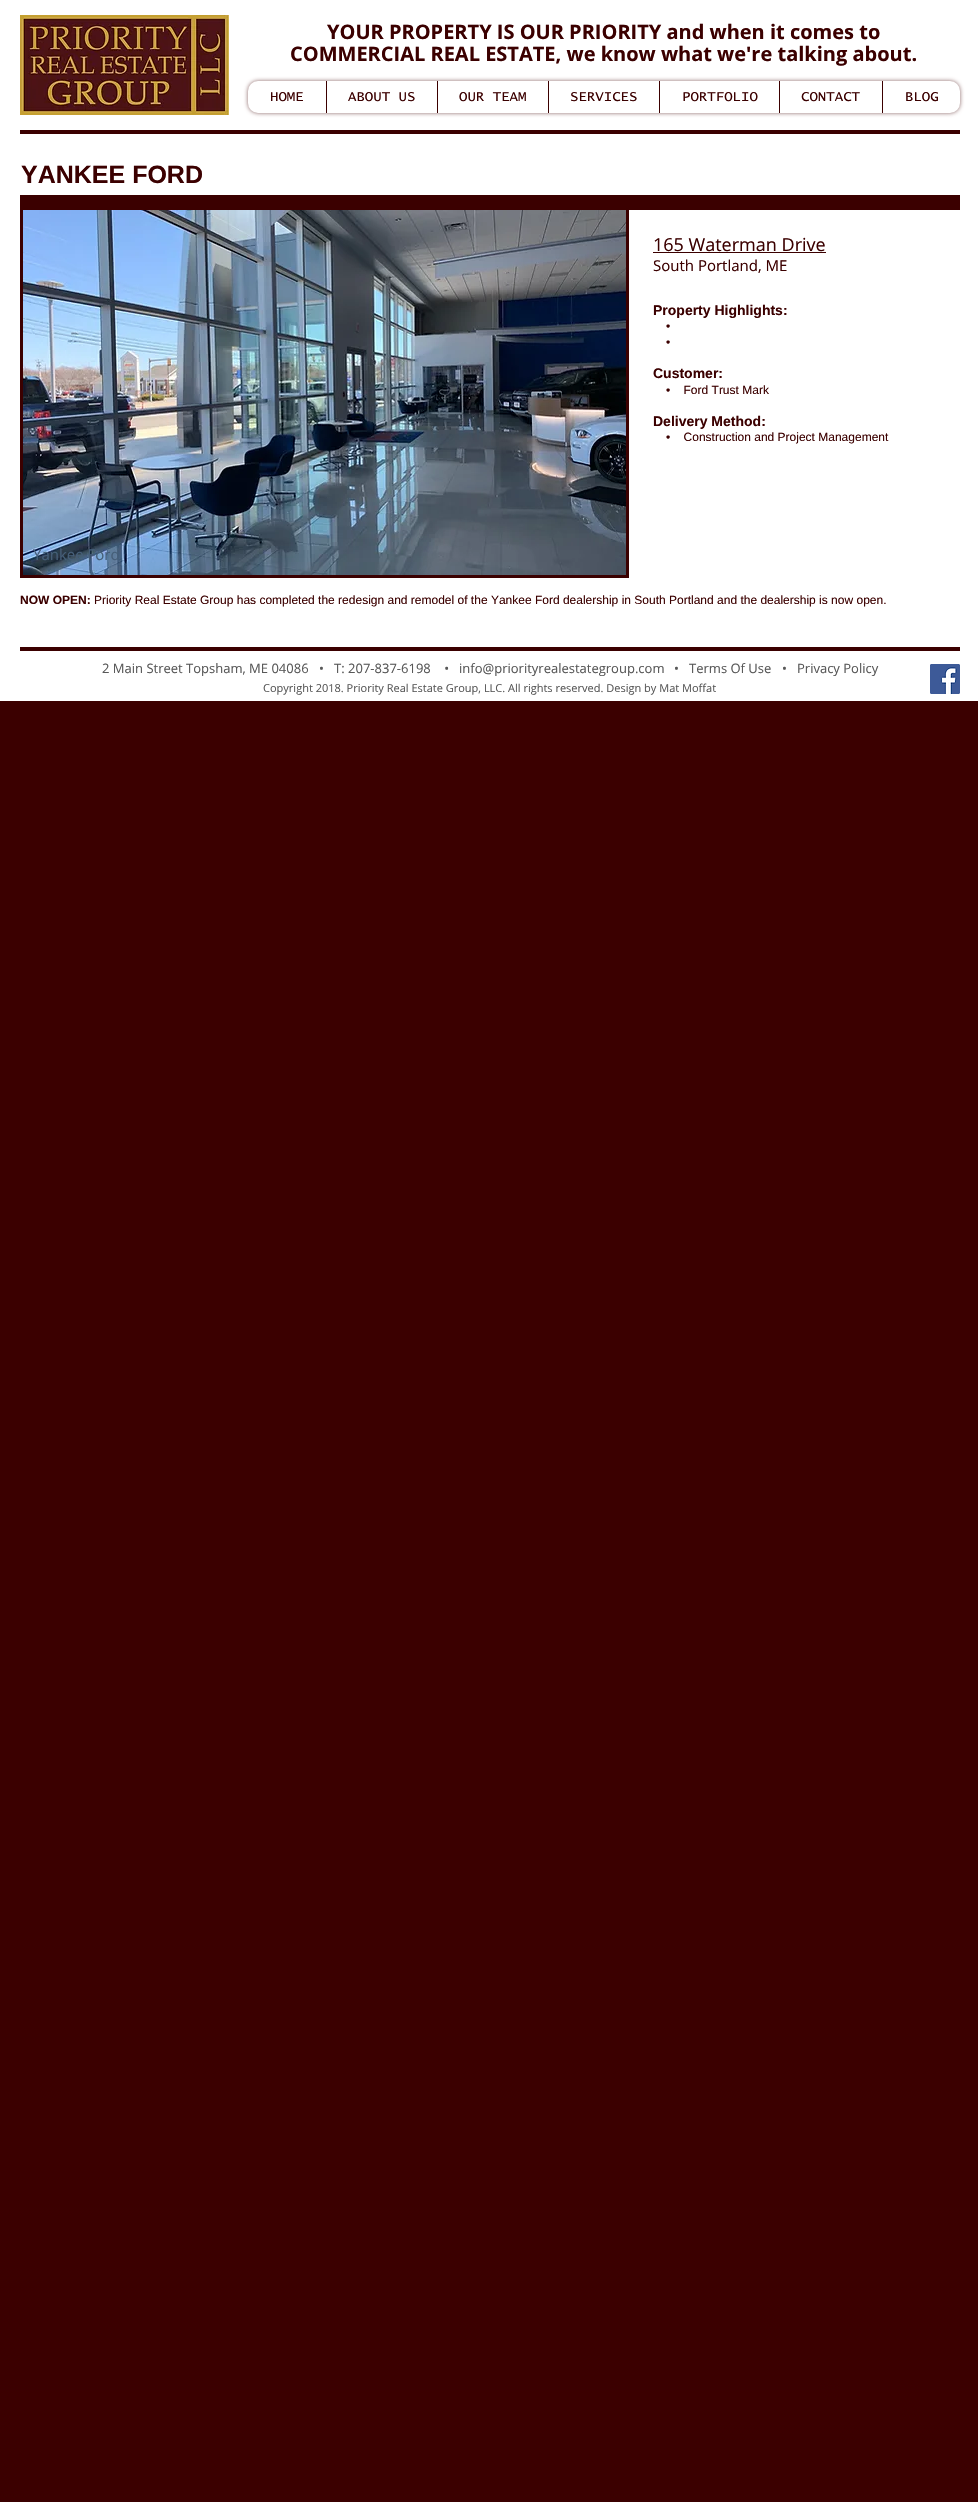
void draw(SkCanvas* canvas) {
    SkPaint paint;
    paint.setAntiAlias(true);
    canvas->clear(0xFF3B0000);
    paint.setColor(0xFFFFFFFF);
    canvas->drawRect(SkRect::MakeXYWH(0, 0, 978, 701), paint);
    canvas->drawImageRect(SkImages::DeferredFromEncodedData(SkData::MakeFromFileName("img1.png")), SkRect::MakeXYWH(20, 15, 209, 100), SkSamplingOptions());
    SkFont font1(fontMgr->matchFamilyStyle("Open Sans", SkFontStyle::Bold()), 20);
    font1.setSubpixel(true);
    paint.setColor(0xFF3B0000);
    canvas->drawString("YOUR PROPERTY IS OUR PRIORITY and when it comes to", 327, 39, font1, paint);
    canvas->drawString("COMMERCIAL REAL ESTATE, we know what we're talking about.", 290, 61, font1, paint);
    paint.setColor(0x993B0000);
    paint.setMaskFilter(SkMaskFilter::MakeBlur(kNormal_SkBlurStyle, 2));
    canvas->drawRoundRect(SkRect::MakeXYWH(248, 81, 712, 32), 10, 10, paint);
    paint.setMaskFilter(nullptr);
    paint.setColor(0xFFFFFFFF);
    canvas->drawRoundRect(SkRect::MakeXYWH(248, 81, 712, 32), 10, 10, paint);
    SkFont font2(fontMgr->matchFamilyStyle("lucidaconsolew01", SkFontStyle::Normal()), 14);
    font2.setSubpixel(true);
    paint.setColor(0xFF3B0000);
    canvas->drawString("HOME", 270, 101, font2, paint);
    canvas->drawRect(SkRect::MakeXYWH(326, 81, 1, 32), paint);
    canvas->drawString("ABOUT US", 348, 101, font2, paint);
    canvas->drawRect(SkRect::MakeXYWH(437, 81, 1, 32), paint);
    canvas->drawString("OUR TEAM", 459, 101, font2, paint);
    canvas->drawRect(SkRect::MakeXYWH(548, 81, 1, 32), paint);
    canvas->drawString("SERVICES", 570, 101, font2, paint);
    canvas->drawRect(SkRect::MakeXYWH(659, 81, 1, 32), paint);
    canvas->drawString("PORTFOLIO", 682, 101, font2, paint);
    canvas->drawRect(SkRect::MakeXYWH(779, 81, 1, 32), paint);
    canvas->drawString("CONTACT", 801, 101, font2, paint);
    canvas->drawRect(SkRect::MakeXYWH(882, 81, 1, 32), paint);
    canvas->drawString("BLOG", 905, 101, font2, paint);
    canvas->drawRect(SkRect::MakeXYWH(20, 130, 940, 4), paint);
    SkFont font3(fontMgr->matchFamilyStyle("Liberation Sans", SkFontStyle::Bold()), 25);
    font3.setSubpixel(true);
    canvas->drawString("YANKEE FORD", 21, 183, font3, paint);
    canvas->drawRect(SkRect::MakeXYWH(20, 195, 940, 15), paint);
    SkFont font4(fontMgr->matchFamilyStyle("Open Sans", SkFontStyle::Normal()), 18);
    font4.setSubpixel(true);
    canvas->drawString("165 Waterman Drive", 653, 251, font4, paint);
    canvas->drawRect(SkRect::MakeXYWH(653, 252, 173, 1), paint);
    SkFont font5(fontMgr->matchFamilyStyle("Open Sans", SkFontStyle::Normal()), 15);
    font5.setSubpixel(true);
    canvas->drawString("South Portland, ME", 653, 271, font5, paint);
    SkFont font6(fontMgr->matchFamilyStyle("Liberation Sans", SkFontStyle::Bold()), 14);
    font6.setSubpixel(true);
    canvas->drawString("Property Highlights:", 653, 315, font6, paint);
    SkFont font7(fontMgr->matchFamilyStyle("Liberation Sans", SkFontStyle::Normal()), 12);
    font7.setSubpixel(true);
    canvas->drawString("•", 666, 330, font7, paint);
    canvas->drawString("•", 666, 346, font7, paint);
    canvas->drawString("Customer:", 653, 378, font6, paint);
    canvas->drawString("•    Ford Trust Mark", 666, 394, font7, paint);
    canvas->drawString("Delivery Method:", 653, 426, font6, paint);
    canvas->drawString("•    Construction and Project Management", 666, 441, font7, paint);
    canvas->drawRect(SkRect::MakeXYWH(20, 210, 609, 368), paint);
    canvas->drawImageRect(SkImages::DeferredFromEncodedData(SkData::MakeFromFileName("img2.png")), SkRect::MakeXYWH(23, 210, 603, 365), SkSamplingOptions());
    paint.setColor(0xFF455E78);
    canvas->drawString("Yankee Ford", 33, 560, font5, paint);
    SkFont font8(fontMgr->matchFamilyStyle("Liberation Sans", SkFontStyle::Bold()), 12);
    font8.setSubpixel(true);
    paint.setColor(0xFF3B0000);
    canvas->drawString("NOW OPEN:", 20, 604, font8, paint);
    canvas->drawString("Priority Real Estate Group has completed the redesign and remodel of the Yankee Ford dealership in South Portland and the dealership is now open.", 94, 604, font7, paint);
    canvas->drawRect(SkRect::MakeXYWH(20, 647, 940, 4), paint);
    SkFont font9(fontMgr->matchFamilyStyle("Open Sans", SkFontStyle::Normal()), 13);
    font9.setSubpixel(true);
    paint.setColor(0xFF585858);
    canvas->drawString("2 Main Street Topsham, ME 04086", 102, 673, font9, paint);
    canvas->drawString("•   T: 207-837-6198    •", 319, 673, font9, paint);
    canvas->drawString("info@priorityrealestategroup.com", 459, 673, font9, paint);
    canvas->drawString("•", 674, 673, font9, paint);
    canvas->drawString("Terms Of Use", 689, 673, font9, paint);
    canvas->drawString("•", 782, 673, font9, paint);
    canvas->drawString("Privacy Policy", 797, 673, font9, paint);
    SkFont font10(fontMgr->matchFamilyStyle("Open Sans", SkFontStyle::Normal()), 11);
    font10.setSubpixel(true);
    canvas->drawString("Copyright 2018. Priority Real Estate Group, LLC. All rights reserved. Design by Mat Moffat", 263, 692, font10, paint);
    canvas->drawImageRect(SkImages::DeferredFromEncodedData(SkData::MakeFromFileName("img3.png")), SkRect::MakeXYWH(930, 664, 30, 30), SkSamplingOptions());
}
